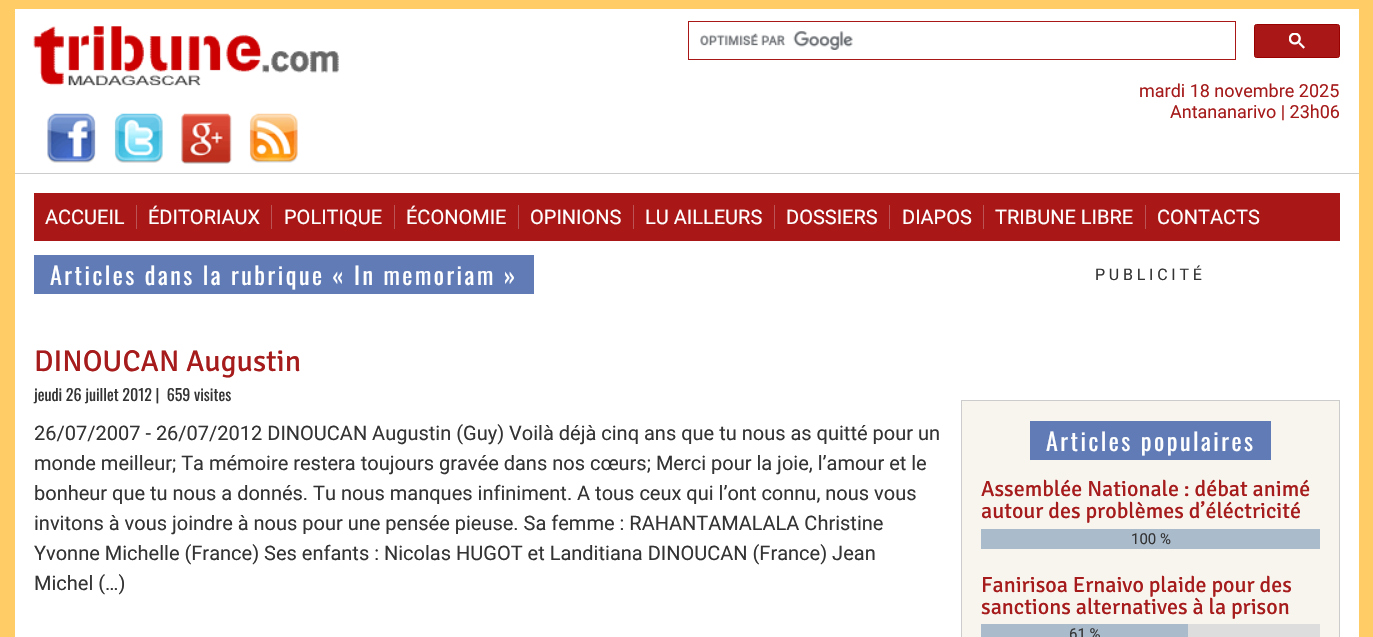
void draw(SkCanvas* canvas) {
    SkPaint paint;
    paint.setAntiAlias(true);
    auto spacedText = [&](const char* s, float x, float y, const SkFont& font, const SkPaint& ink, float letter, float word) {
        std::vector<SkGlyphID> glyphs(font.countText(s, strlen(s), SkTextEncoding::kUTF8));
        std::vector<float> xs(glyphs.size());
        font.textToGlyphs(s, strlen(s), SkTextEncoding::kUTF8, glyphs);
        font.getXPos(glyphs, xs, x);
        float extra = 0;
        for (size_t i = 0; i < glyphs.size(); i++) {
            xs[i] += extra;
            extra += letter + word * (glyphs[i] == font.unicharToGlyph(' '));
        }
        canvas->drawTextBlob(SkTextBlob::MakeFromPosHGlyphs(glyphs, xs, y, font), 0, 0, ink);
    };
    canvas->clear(0xFFFFCC66);
    paint.setColor(0xFFFFFFFF);
    canvas->drawRect(SkRect::MakeXYWH(15, 9, 1344, 164), paint);
    paint.setColor(0xFFCCCCCC);
    canvas->drawRect(SkRect::MakeXYWH(15, 173, 1344, 1), paint);
    canvas->drawImageRect(SkImages::DeferredFromEncodedData(SkData::MakeFromFileName("img1.png")), SkRect::MakeXYWH(33, 26, 306, 60), SkSamplingOptions());
    canvas->drawImageRect(SkImages::DeferredFromEncodedData(SkData::MakeFromFileName("img2.png")), SkRect::MakeXYWH(47, 113, 49, 50), SkSamplingOptions());
    canvas->drawImageRect(SkImages::DeferredFromEncodedData(SkData::MakeFromFileName("img3.png")), SkRect::MakeXYWH(114, 113, 49, 50), SkSamplingOptions());
    canvas->drawImageRect(SkImages::DeferredFromEncodedData(SkData::MakeFromFileName("img4.png")), SkRect::MakeXYWH(181, 113, 51, 51), SkSamplingOptions());
    canvas->drawImageRect(SkImages::DeferredFromEncodedData(SkData::MakeFromFileName("img5.png")), SkRect::MakeXYWH(249, 113, 49, 50), SkSamplingOptions());
    paint.setStyle(SkPaint::kStroke_Style);
    paint.setStrokeWidth(1);
    paint.setColor(0xFFA91717);
    canvas->drawRect(SkRect::MakeXYWH(688.5f, 21.5f, 547, 38), paint);
    canvas->drawImageRect(SkImages::DeferredFromEncodedData(SkData::MakeFromFileName("img6.png")), SkRect::MakeXYWH(700, 31, 153, 19), SkSamplingOptions());
    paint.setStyle(SkPaint::kFill_Style);
    canvas->drawRoundRect(SkRect::MakeXYWH(1254.5f, 24.5f, 85, 33), 2, 2, paint);
    paint.setStyle(SkPaint::kStroke_Style);
    paint.setColor(0xFF990000);
    canvas->drawRoundRect(SkRect::MakeXYWH(1254.5f, 24.5f, 85, 33), 2, 2, paint);
    canvas->drawImageRect(SkImages::DeferredFromEncodedData(SkData::MakeFromFileName("img7.png")), SkRect::MakeXYWH(1289, 33, 16, 16), SkSamplingOptions());
    SkFont font1(fontMgr->matchFamilyStyle("Roboto", SkFontStyle::Normal()), 18);
    font1.setSubpixel(true);
    paint.setStyle(SkPaint::kFill_Style);
    paint.setColor(0xFFA61B1B);
    canvas->drawString("mardi 18 novembre 2025", 1139, 97, font1, paint);
    canvas->drawString("Antananarivo | 23h06", 1170, 118, font1, paint);
    paint.setColor(0xFFFFFFFF);
    canvas->drawRect(SkRect::MakeXYWH(15, 174, 1344, 463), paint);
    paint.setColor(0xFFA91717);
    canvas->drawRect(SkRect::MakeXYWH(34, 193, 1306, 48), paint);
    paint.setColor(0xFFBB5555);
    canvas->drawRect(SkRect::MakeXYWH(136, 205, 1, 24), paint);
    SkFont font2(fontMgr->matchFamilyStyle("Roboto", SkFontStyle::Normal()), 20);
    font2.setSubpixel(true);
    paint.setColor(0xFFFFFFFF);
    canvas->drawString("ACCUEIL", 45, 224, font2, paint);
    paint.setColor(0xFFBB5555);
    canvas->drawRect(SkRect::MakeXYWH(271, 205, 1, 24), paint);
    paint.setColor(0xFFFFFFFF);
    canvas->drawString("ÉDITORIAUX", 148, 224, font2, paint);
    paint.setColor(0xFFBB5555);
    canvas->drawRect(SkRect::MakeXYWH(394, 205, 1, 24), paint);
    paint.setColor(0xFFFFFFFF);
    canvas->drawString("POLITIQUE", 284, 224, font2, paint);
    paint.setColor(0xFFBB5555);
    canvas->drawRect(SkRect::MakeXYWH(518, 205, 1, 24), paint);
    paint.setColor(0xFFFFFFFF);
    canvas->drawString("ÉCONOMIE", 406, 224, font2, paint);
    paint.setColor(0xFFBB5555);
    canvas->drawRect(SkRect::MakeXYWH(633, 205, 1, 24), paint);
    paint.setColor(0xFFFFFFFF);
    canvas->drawString("OPINIONS", 530, 224, font2, paint);
    paint.setColor(0xFFBB5555);
    canvas->drawRect(SkRect::MakeXYWH(774, 205, 1, 24), paint);
    paint.setColor(0xFFFFFFFF);
    canvas->drawString("LU AILLEURS", 645, 224, font2, paint);
    paint.setColor(0xFFBB5555);
    canvas->drawRect(SkRect::MakeXYWH(889, 205, 1, 24), paint);
    paint.setColor(0xFFFFFFFF);
    canvas->drawString("DOSSIERS", 786, 224, font2, paint);
    paint.setColor(0xFFBB5555);
    canvas->drawRect(SkRect::MakeXYWH(983, 205, 1, 24), paint);
    paint.setColor(0xFFFFFFFF);
    canvas->drawString("DIAPOS", 902, 224, font2, paint);
    paint.setColor(0xFFBB5555);
    canvas->drawRect(SkRect::MakeXYWH(1145, 205, 1, 24), paint);
    paint.setColor(0xFFFFFFFF);
    canvas->drawString("TRIBUNE LIBRE", 995, 224, font2, paint);
    canvas->drawString("CONTACTS", 1157, 224, font2, paint);
    paint.setColor(0xFF607BB6);
    canvas->drawRect(SkRect::MakeXYWH(34, 255, 500, 39), paint);
    SkFont font3(fontMgr->matchFamilyStyle("Oswald", SkFontStyle::Normal()), 24);
    font3.setSubpixel(true);
    paint.setColor(0xFFFFFFFF);
    spacedText("Articles dans la rubrique « In memoriam »", 50, 285, font3, paint, 2.5f, 0);
    SkFont font4(fontMgr->matchFamilyStyle("Signika", SkFontStyle(300, SkFontStyle::kNormal_Width, SkFontStyle::kUpright_Slant)), 30);
    font4.setSubpixel(true);
    paint.setColor(0xFFA61B1B);
    canvas->drawString("DINOUCAN Augustin", 34, 371, font4, paint);
    SkFont font5(fontMgr->matchFamilyStyle("Oswald", SkFontStyle::Normal()), 16);
    font5.setSubpixel(true);
    paint.setColor(0xFF343434);
    canvas->drawString("jeudi 26 juillet 2012 |  659 visites", 34, 401, font5, paint);
    canvas->drawString("26/07/2007 - 26/07/2012 DINOUCAN Augustin (Guy) Voilà déjà cinq ans que tu nous as quitté pour un", 34, 440, font2, paint);
    canvas->drawString("monde meilleur; Ta mémoire restera toujours gravée dans nos cœurs; Merci pour la joie, l’amour et le", 34, 470, font2, paint);
    canvas->drawString("bonheur que tu nous a donnés. Tu nous manques infiniment. A tous ceux qui l’ont connu, nous vous", 34, 500, font2, paint);
    canvas->drawString("invitons à vous joindre à nous pour une pensée pieuse. Sa femme : RAHANTAMALALA Christine", 34, 530, font2, paint);
    canvas->drawString("Yvonne Michelle (France) Ses enfants : Nicolas HUGOT et Landitiana DINOUCAN (France) Jean", 34, 560, font2, paint);
    canvas->drawString("Michel (…)", 34, 590, font2, paint);
    SkFont font6(fontMgr->matchFamilyStyle("Roboto", SkFontStyle::Normal()), 16);
    font6.setSubpixel(true);
    spacedText("PUBLICITÉ", 1095, 280, font6, paint, 3.75f, 0);
    paint.setColor(0xFFF8F5EF);
    canvas->drawRect(SkRect::MakeXYWH(961.5f, 400.5f, 378, 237), paint);
    paint.setStyle(SkPaint::kStroke_Style);
    paint.setColor(0xFFCCCCCC);
    canvas->drawRect(SkRect::MakeXYWH(961.5f, 400.5f, 378, 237), paint);
    paint.setStyle(SkPaint::kFill_Style);
    paint.setColor(0xFF607BB6);
    canvas->drawRect(SkRect::MakeXYWH(1030, 421, 241, 39), paint);
    paint.setColor(0xFFFFFFFF);
    spacedText("Articles populaires", 1046, 451, font3, paint, 2.5f, 0);
    SkFont font7(fontMgr->matchFamilyStyle("Signika", SkFontStyle(300, SkFontStyle::kNormal_Width, SkFontStyle::kUpright_Slant)), 22);
    font7.setSubpixel(true);
    paint.setColor(0xFFA61B1B);
    canvas->drawString("Assemblée Nationale : débat animé", 981, 496, font7, paint);
    canvas->drawString("autour des problèmes d’éléctricité", 981, 518, font7, paint);
    paint.setColor(0xFFAABBCC);
    canvas->drawRect(SkRect::MakeXYWH(981, 529, 339, 20), paint);
    SkFont font8(fontMgr->matchFamilyStyle("Roboto", SkFontStyle::Normal()), 15);
    font8.setSubpixel(true);
    paint.setColor(0xFF343434);
    canvas->drawString("100 %", 1131, 544, font8, paint);
    paint.setColor(0xFFA61B1B);
    canvas->drawString("Fanirisoa Ernaivo plaide pour des", 981, 592, font7, paint);
    canvas->drawString("sanctions alternatives à la prison", 981, 614, font7, paint);
    paint.setColor(0xFFDDDDDD);
    canvas->drawRect(SkRect::MakeXYWH(1188, 624, 132, 13), paint);
    paint.setColor(0xFFAABBCC);
    canvas->drawRect(SkRect::MakeXYWH(981, 624, 207, 13), paint);
    paint.setColor(0xFF343434);
    canvas->drawString("61 %", 1069, 639, font8, paint);
}
